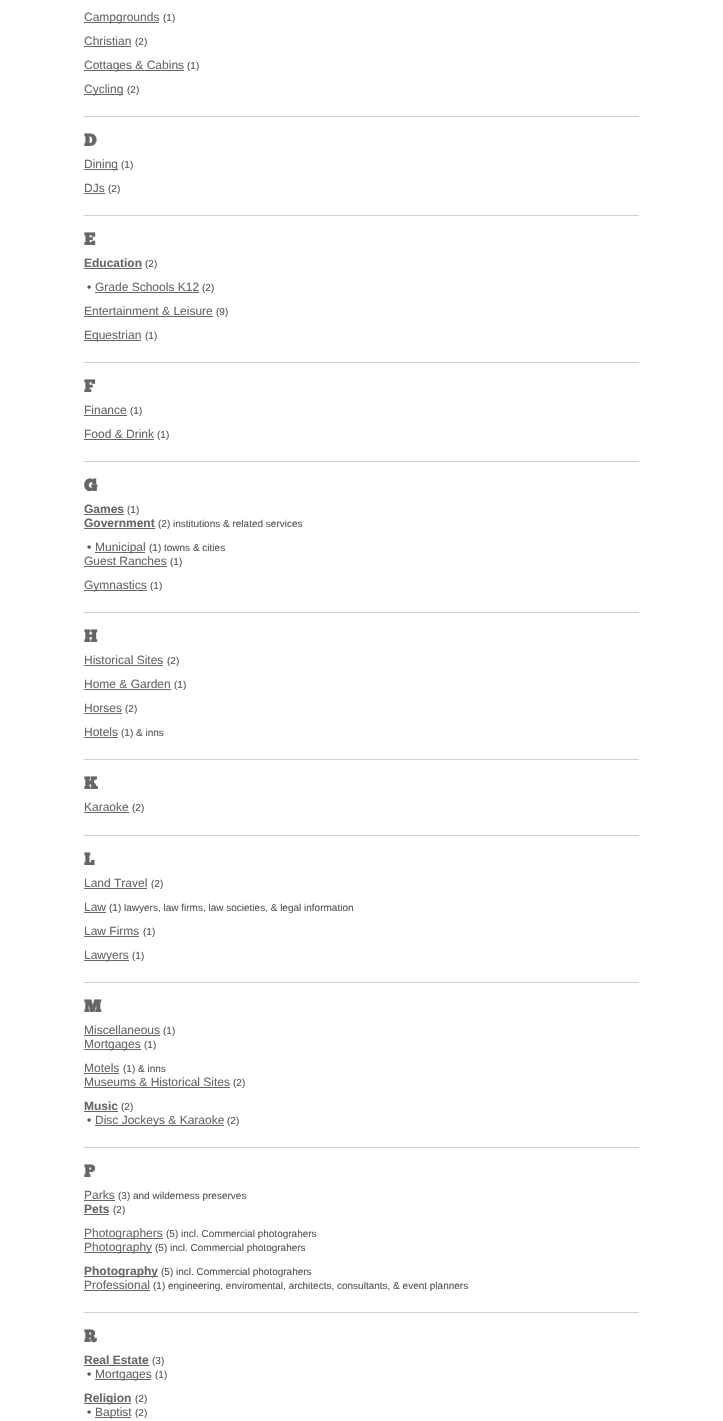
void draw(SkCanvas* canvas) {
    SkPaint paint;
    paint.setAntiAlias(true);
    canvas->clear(0xFFFFFFFF);
    paint.setColor(0xFF666666);
    canvas->drawRect(SkRect::MakeXYWH(84, 22, 75, 1), paint);
    SkFont font1(fontMgr->matchFamilyStyle("Liberation Sans", SkFontStyle::Normal()), 12);
    font1.setSubpixel(true);
    canvas->drawString("Campgrounds", 84, 21, font1, paint);
    SkFont font2(fontMgr->matchFamilyStyle("Liberation Sans", SkFontStyle::Normal()), 10);
    font2.setSubpixel(true);
    paint.setColor(0xFF555555);
    canvas->drawString("(1)", 163, 21, font2, paint);
    paint.setColor(0xFF666666);
    canvas->drawString("Christian", 84, 45, font1, paint);
    canvas->drawRect(SkRect::MakeXYWH(84, 46, 47, 1), paint);
    paint.setColor(0xFF555555);
    canvas->drawString("(2)", 135, 45, font2, paint);
    paint.setColor(0xFF666666);
    canvas->drawRect(SkRect::MakeXYWH(84, 70, 100, 1), paint);
    canvas->drawString("Cottages & Cabins", 84, 69, font1, paint);
    paint.setColor(0xFF555555);
    canvas->drawString("(1)", 187, 69, font2, paint);
    paint.setColor(0xFF666666);
    canvas->drawRect(SkRect::MakeXYWH(84, 94, 39, 1), paint);
    canvas->drawString("Cycling", 84, 93, font1, paint);
    paint.setColor(0xFF555555);
    canvas->drawString("(2)", 127, 93, font2, paint);
    paint.setColor(0xFFD0D0D0);
    canvas->drawRect(SkRect::MakeXYWH(84, 116, 555, 1), paint);
    SkFont font3(fontMgr->matchFamilyStyle("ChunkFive", SkFontStyle::Bold()), 17);
    font3.setSubpixel(true);
    paint.setColor(0xFF666666);
    canvas->drawString("D", 84, 146, font3, paint);
    canvas->drawRect(SkRect::MakeXYWH(84, 169, 34, 1), paint);
    canvas->drawString("Dining", 84, 168, font1, paint);
    paint.setColor(0xFF555555);
    canvas->drawString("(1)", 121, 168, font2, paint);
    paint.setColor(0xFF666666);
    canvas->drawString("DJs", 84, 192, font1, paint);
    canvas->drawRect(SkRect::MakeXYWH(84, 193, 21, 1), paint);
    paint.setColor(0xFF555555);
    canvas->drawString("(2)", 108, 192, font2, paint);
    paint.setColor(0xFFD0D0D0);
    canvas->drawRect(SkRect::MakeXYWH(84, 215, 555, 1), paint);
    paint.setColor(0xFF666666);
    canvas->drawString("E", 84, 245, font3, paint);
    SkFont font4(fontMgr->matchFamilyStyle("Liberation Sans", SkFontStyle::Bold()), 12);
    font4.setSubpixel(true);
    canvas->drawString("Education", 84, 267, font4, paint);
    canvas->drawRect(SkRect::MakeXYWH(84, 268, 58, 1), paint);
    paint.setColor(0xFF555555);
    canvas->drawString("(2)", 145, 267, font2, paint);
    canvas->drawString("•", 87, 291, font1, paint);
    paint.setColor(0xFF666666);
    canvas->drawString("Grade Schools K12", 95, 291, font1, paint);
    canvas->drawRect(SkRect::MakeXYWH(95, 292, 104, 1), paint);
    paint.setColor(0xFF555555);
    canvas->drawString("(2)", 202, 291, font2, paint);
    paint.setColor(0xFF666666);
    canvas->drawString("Entertainment & Leisure", 84, 315, font1, paint);
    canvas->drawRect(SkRect::MakeXYWH(84, 316, 129, 1), paint);
    paint.setColor(0xFF555555);
    canvas->drawString("(9)", 216, 315, font2, paint);
    paint.setColor(0xFF666666);
    canvas->drawRect(SkRect::MakeXYWH(84, 340, 57, 1), paint);
    canvas->drawString("Equestrian", 84, 339, font1, paint);
    paint.setColor(0xFF555555);
    canvas->drawString("(1)", 145, 339, font2, paint);
    paint.setColor(0xFFD0D0D0);
    canvas->drawRect(SkRect::MakeXYWH(84, 362, 555, 1), paint);
    paint.setColor(0xFF666666);
    canvas->drawString("F", 84, 392, font3, paint);
    canvas->drawString("Finance", 84, 414, font1, paint);
    canvas->drawRect(SkRect::MakeXYWH(84, 415, 43, 1), paint);
    paint.setColor(0xFF555555);
    canvas->drawString("(1)", 130, 414, font2, paint);
    paint.setColor(0xFF666666);
    canvas->drawString("Food & Drink", 84, 438, font1, paint);
    canvas->drawRect(SkRect::MakeXYWH(84, 439, 70, 1), paint);
    paint.setColor(0xFF555555);
    canvas->drawString("(1)", 157, 438, font2, paint);
    paint.setColor(0xFFD0D0D0);
    canvas->drawRect(SkRect::MakeXYWH(84, 461, 555, 1), paint);
    paint.setColor(0xFF666666);
    canvas->drawString("G", 84, 491, font3, paint);
    canvas->drawString("Games", 84, 513, font4, paint);
    canvas->drawRect(SkRect::MakeXYWH(84, 514, 40, 1), paint);
    paint.setColor(0xFF555555);
    canvas->drawString("(1)", 127, 513, font2, paint);
    paint.setColor(0xFF666666);
    canvas->drawString("Government", 84, 527, font4, paint);
    canvas->drawRect(SkRect::MakeXYWH(84, 528, 71, 1), paint);
    paint.setColor(0xFF555555);
    canvas->drawString("(2) institutions & related services", 158, 527, font2, paint);
    canvas->drawString("•", 87, 551, font1, paint);
    paint.setColor(0xFF666666);
    canvas->drawRect(SkRect::MakeXYWH(95, 552, 50, 1), paint);
    canvas->drawString("Municipal", 95, 551, font1, paint);
    paint.setColor(0xFF555555);
    canvas->drawString("(1) towns & cities", 149, 551, font2, paint);
    paint.setColor(0xFF666666);
    canvas->drawString("Guest Ranches", 84, 565, font1, paint);
    canvas->drawRect(SkRect::MakeXYWH(84, 566, 83, 1), paint);
    paint.setColor(0xFF555555);
    canvas->drawString("(1)", 170, 565, font2, paint);
    paint.setColor(0xFF666666);
    canvas->drawRect(SkRect::MakeXYWH(84, 590, 63, 1), paint);
    canvas->drawString("Gymnastics", 84, 589, font1, paint);
    paint.setColor(0xFF555555);
    canvas->drawString("(1)", 150, 589, font2, paint);
    paint.setColor(0xFFD0D0D0);
    canvas->drawRect(SkRect::MakeXYWH(84, 612, 555, 1), paint);
    paint.setColor(0xFF666666);
    canvas->drawString("H", 84, 642, font3, paint);
    canvas->drawString("Historical Sites", 84, 664, font1, paint);
    canvas->drawRect(SkRect::MakeXYWH(84, 665, 79, 1), paint);
    paint.setColor(0xFF555555);
    canvas->drawString("(2)", 167, 664, font2, paint);
    paint.setColor(0xFF666666);
    canvas->drawString("Home & Garden", 84, 688, font1, paint);
    canvas->drawRect(SkRect::MakeXYWH(84, 689, 87, 1), paint);
    paint.setColor(0xFF555555);
    canvas->drawString("(1)", 174, 688, font2, paint);
    paint.setColor(0xFF666666);
    canvas->drawString("Horses", 84, 712, font1, paint);
    canvas->drawRect(SkRect::MakeXYWH(84, 713, 38, 1), paint);
    paint.setColor(0xFF555555);
    canvas->drawString("(2)", 125, 712, font2, paint);
    paint.setColor(0xFF666666);
    canvas->drawString("Hotels", 84, 736, font1, paint);
    canvas->drawRect(SkRect::MakeXYWH(84, 737, 34, 1), paint);
    paint.setColor(0xFF555555);
    canvas->drawString("(1) & inns", 121, 736, font2, paint);
    paint.setColor(0xFFD0D0D0);
    canvas->drawRect(SkRect::MakeXYWH(84, 759, 555, 1), paint);
    paint.setColor(0xFF666666);
    canvas->drawString("K", 84, 789, font3, paint);
    canvas->drawString("Karaoke", 84, 811, font1, paint);
    canvas->drawRect(SkRect::MakeXYWH(84, 812, 45, 1), paint);
    paint.setColor(0xFF555555);
    canvas->drawString("(2)", 132, 811, font2, paint);
    paint.setColor(0xFFD0D0D0);
    canvas->drawRect(SkRect::MakeXYWH(84, 835, 555, 1), paint);
    paint.setColor(0xFF666666);
    canvas->drawString("L", 84, 865, font3, paint);
    canvas->drawString("Land Travel", 84, 887, font1, paint);
    canvas->drawRect(SkRect::MakeXYWH(84, 888, 63, 1), paint);
    paint.setColor(0xFF555555);
    canvas->drawString("(2)", 151, 887, font2, paint);
    paint.setColor(0xFF666666);
    canvas->drawString("Law", 84, 911, font1, paint);
    canvas->drawRect(SkRect::MakeXYWH(84, 912, 22, 1), paint);
    paint.setColor(0xFF555555);
    canvas->drawString("(1) lawyers, law firms, law societies, & legal information", 109, 911, font2, paint);
    paint.setColor(0xFF666666);
    canvas->drawString("Law Firms", 84, 935, font1, paint);
    canvas->drawRect(SkRect::MakeXYWH(84, 936, 55, 1), paint);
    paint.setColor(0xFF555555);
    canvas->drawString("(1)", 143, 935, font2, paint);
    paint.setColor(0xFF666666);
    canvas->drawRect(SkRect::MakeXYWH(84, 960, 45, 1), paint);
    canvas->drawString("Lawyers", 84, 959, font1, paint);
    paint.setColor(0xFF555555);
    canvas->drawString("(1)", 132, 959, font2, paint);
    paint.setColor(0xFFD0D0D0);
    canvas->drawRect(SkRect::MakeXYWH(84, 982, 555, 1), paint);
    paint.setColor(0xFF666666);
    canvas->drawString("M", 84, 1012, font3, paint);
    canvas->drawString("Miscellaneous", 84, 1034, font1, paint);
    canvas->drawRect(SkRect::MakeXYWH(84, 1035, 76, 1), paint);
    paint.setColor(0xFF555555);
    canvas->drawString("(1)", 163, 1034, font2, paint);
    paint.setColor(0xFF666666);
    canvas->drawRect(SkRect::MakeXYWH(84, 1049, 57, 1), paint);
    canvas->drawString("Mortgages", 84, 1048, font1, paint);
    paint.setColor(0xFF555555);
    canvas->drawString("(1)", 144, 1048, font2, paint);
    paint.setColor(0xFF666666);
    canvas->drawString("Motels", 84, 1072, font1, paint);
    canvas->drawRect(SkRect::MakeXYWH(84, 1073, 35, 1), paint);
    paint.setColor(0xFF555555);
    canvas->drawString("(1) & inns", 123, 1072, font2, paint);
    paint.setColor(0xFF666666);
    canvas->drawString("Museums & Historical Sites", 84, 1086, font1, paint);
    canvas->drawRect(SkRect::MakeXYWH(84, 1087, 146, 1), paint);
    paint.setColor(0xFF555555);
    canvas->drawString("(2)", 233, 1086, font2, paint);
    paint.setColor(0xFF666666);
    canvas->drawString("Music", 84, 1110, font4, paint);
    canvas->drawRect(SkRect::MakeXYWH(84, 1111, 34, 1), paint);
    paint.setColor(0xFF555555);
    canvas->drawString("(2)", 121, 1110, font2, paint);
    canvas->drawString("•", 87, 1124, font1, paint);
    paint.setColor(0xFF666666);
    canvas->drawRect(SkRect::MakeXYWH(95, 1125, 129, 1), paint);
    canvas->drawString("Disc Jockeys & Karaoke", 95, 1124, font1, paint);
    paint.setColor(0xFF555555);
    canvas->drawString("(2)", 227, 1124, font2, paint);
    paint.setColor(0xFFD0D0D0);
    canvas->drawRect(SkRect::MakeXYWH(84, 1147, 555, 1), paint);
    paint.setColor(0xFF666666);
    canvas->drawString("P", 84, 1177, font3, paint);
    canvas->drawString("Parks", 84, 1199, font1, paint);
    canvas->drawRect(SkRect::MakeXYWH(84, 1200, 31, 1), paint);
    paint.setColor(0xFF555555);
    canvas->drawString("(3) and wilderness preserves", 118, 1199, font2, paint);
    paint.setColor(0xFF666666);
    canvas->drawString("Pets", 84, 1213, font4, paint);
    canvas->drawRect(SkRect::MakeXYWH(84, 1214, 25, 1), paint);
    paint.setColor(0xFF555555);
    canvas->drawString("(2)", 113, 1213, font2, paint);
    paint.setColor(0xFF666666);
    canvas->drawRect(SkRect::MakeXYWH(84, 1238, 79, 1), paint);
    canvas->drawString("Photographers", 84, 1237, font1, paint);
    paint.setColor(0xFF555555);
    canvas->drawString("(5) incl. Commercial photograhers", 166, 1237, font2, paint);
    paint.setColor(0xFF666666);
    canvas->drawRect(SkRect::MakeXYWH(84, 1252, 68, 1), paint);
    canvas->drawString("Photography", 84, 1251, font1, paint);
    paint.setColor(0xFF555555);
    canvas->drawString("(5) incl. Commercial photograhers", 155, 1251, font2, paint);
    paint.setColor(0xFF666666);
    canvas->drawRect(SkRect::MakeXYWH(84, 1276, 74, 1), paint);
    canvas->drawString("Photography", 84, 1275, font4, paint);
    paint.setColor(0xFF555555);
    canvas->drawString("(5) incl. Commercial photograhers", 161, 1275, font2, paint);
    paint.setColor(0xFF666666);
    canvas->drawString("Professional", 84, 1289, font1, paint);
    canvas->drawRect(SkRect::MakeXYWH(84, 1290, 66, 1), paint);
    paint.setColor(0xFF555555);
    canvas->drawString("(1) engineering, enviromental, architects, consultants, & event planners", 153, 1289, font2, paint);
    paint.setColor(0xFFD0D0D0);
    canvas->drawRect(SkRect::MakeXYWH(84, 1312, 555, 1), paint);
    paint.setColor(0xFF666666);
    canvas->drawString("R", 84, 1342, font3, paint);
    canvas->drawString("Real Estate", 84, 1364, font4, paint);
    canvas->drawRect(SkRect::MakeXYWH(84, 1365, 65, 1), paint);
    paint.setColor(0xFF555555);
    canvas->drawString("(3)", 152, 1364, font2, paint);
    canvas->drawString("•", 87, 1378, font1, paint);
    paint.setColor(0xFF666666);
    canvas->drawRect(SkRect::MakeXYWH(95, 1379, 56, 1), paint);
    canvas->drawString("Mortgages", 95, 1378, font1, paint);
    paint.setColor(0xFF555555);
    canvas->drawString("(1)", 155, 1378, font2, paint);
    paint.setColor(0xFF666666);
    canvas->drawRect(SkRect::MakeXYWH(84, 1403, 47, 1), paint);
    canvas->drawString("Religion", 84, 1402, font4, paint);
    paint.setColor(0xFF555555);
    canvas->drawString("(2)", 135, 1402, font2, paint);
    canvas->drawString("•", 87, 1416, font1, paint);
    paint.setColor(0xFF666666);
    canvas->drawRect(SkRect::MakeXYWH(95, 1417, 36, 1), paint);
    canvas->drawString("Baptist", 95, 1416, font1, paint);
    paint.setColor(0xFF555555);
    canvas->drawString("(2)", 135, 1416, font2, paint);
}
